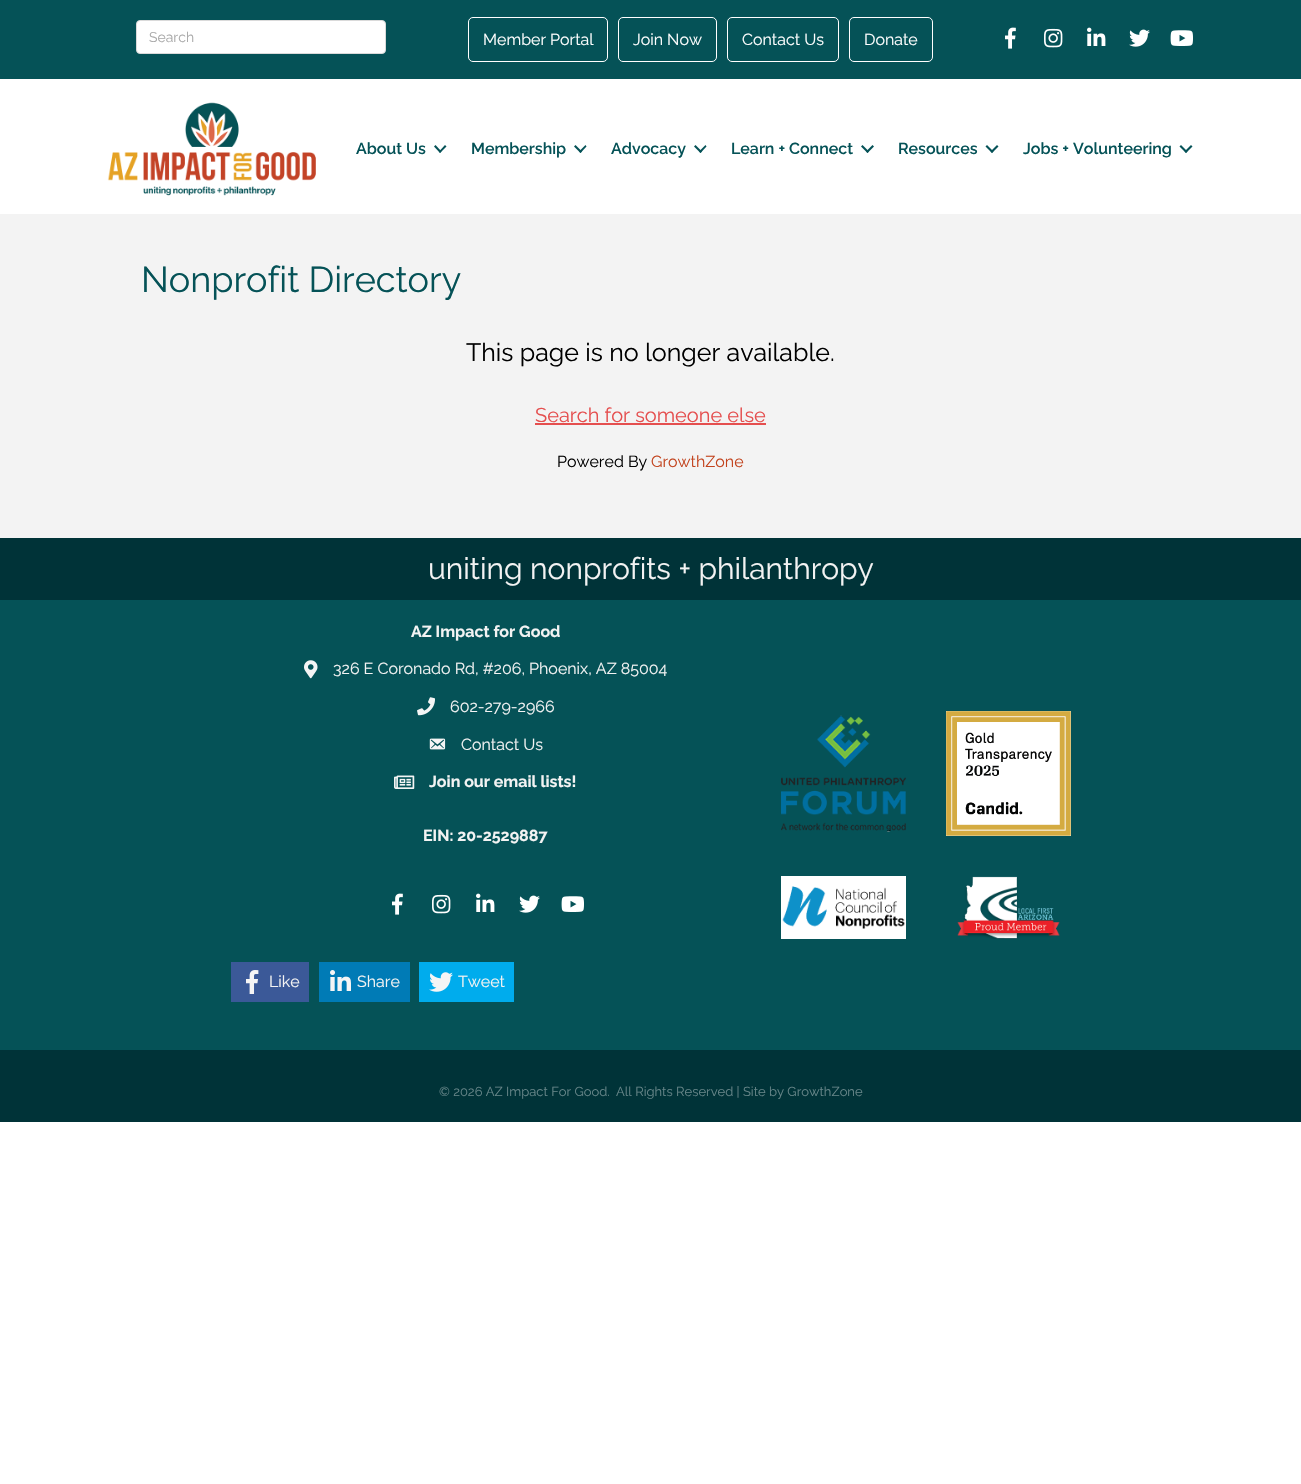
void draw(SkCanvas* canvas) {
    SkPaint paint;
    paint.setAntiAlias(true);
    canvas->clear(0xFFFFFFFF);
    paint.setColor(0xFF055257);
    canvas->drawRect(SkRect::MakeXYWH(0, 0, 1301, 79), paint);
    paint.setColor(0xFFFFFFFF);
    canvas->drawRoundRect(SkRect::MakeXYWH(136.5f, 20.5f, 249, 33), 3.5f, 3.5f, paint);
    paint.setStyle(SkPaint::kStroke_Style);
    paint.setStrokeWidth(1);
    paint.setColor(0xFFDADADA);
    canvas->drawRoundRect(SkRect::MakeXYWH(136.5f, 20.5f, 249, 33), 3.5f, 3.5f, paint);
    SkFont font1(fontMgr->matchFamilyStyle("Raleway", SkFontStyle::Normal()), 14);
    font1.setSubpixel(true);
    paint.setStyle(SkPaint::kFill_Style);
    paint.setColor(0xFFAAAAAA);
    canvas->drawString("Search", 149, 42, font1, paint);
    paint.setStyle(SkPaint::kStroke_Style);
    paint.setColor(0xFFFFFFFF);
    canvas->drawRoundRect(SkRect::MakeXYWH(468.5f, 17.5f, 139, 44), 4.5f, 4.5f, paint);
    SkFont font2(fontMgr->matchFamilyStyle("Raleway", SkFontStyle::Normal()), 16);
    font2.setSubpixel(true);
    paint.setStyle(SkPaint::kFill_Style);
    canvas->drawString("Member Portal", 483, 45, font2, paint);
    paint.setStyle(SkPaint::kStroke_Style);
    canvas->drawRoundRect(SkRect::MakeXYWH(618.5f, 17.5f, 98, 44), 4.5f, 4.5f, paint);
    paint.setStyle(SkPaint::kFill_Style);
    canvas->drawString("Join Now", 633, 45, font2, paint);
    paint.setStyle(SkPaint::kStroke_Style);
    canvas->drawRoundRect(SkRect::MakeXYWH(727.5f, 17.5f, 111, 44), 4.5f, 4.5f, paint);
    paint.setStyle(SkPaint::kFill_Style);
    canvas->drawString("Contact Us", 742, 45, font2, paint);
    paint.setStyle(SkPaint::kStroke_Style);
    canvas->drawRoundRect(SkRect::MakeXYWH(849.5f, 17.5f, 83, 44), 4.5f, 4.5f, paint);
    paint.setStyle(SkPaint::kFill_Style);
    canvas->drawString("Donate", 864, 45, font2, paint);
    canvas->drawImageRect(SkImages::DeferredFromEncodedData(SkData::MakeFromFileName("img1.png")), SkRect::MakeXYWH(1005, 27, 11, 22), SkSamplingOptions());
    canvas->drawImageRect(SkImages::DeferredFromEncodedData(SkData::MakeFromFileName("img2.png")), SkRect::MakeXYWH(1044, 28, 19, 20), SkSamplingOptions());
    canvas->drawImageRect(SkImages::DeferredFromEncodedData(SkData::MakeFromFileName("img3.png")), SkRect::MakeXYWH(1087, 27, 19, 19), SkSamplingOptions());
    canvas->drawImageRect(SkImages::DeferredFromEncodedData(SkData::MakeFromFileName("img4.png")), SkRect::MakeXYWH(1129, 29, 21, 18), SkSamplingOptions());
    canvas->drawImageRect(SkImages::DeferredFromEncodedData(SkData::MakeFromFileName("img5.png")), SkRect::MakeXYWH(1170, 30, 23, 16), SkSamplingOptions());
    canvas->drawImageRect(SkImages::DeferredFromEncodedData(SkData::MakeFromFileName("img6.png")), SkRect::MakeXYWH(107, 102, 209, 94), SkSamplingOptions());
    SkFont font3(fontMgr->matchFamilyStyle("Raleway", SkFontStyle(600, SkFontStyle::kNormal_Width, SkFontStyle::kUpright_Slant)), 16);
    font3.setSubpixel(true);
    paint.setColor(0xFF055257);
    canvas->drawString("About Us", 356, 154, font3, paint);
    canvas->drawPath(SkPathBuilder().moveTo(445, 145).lineTo(446.5f, 146.5f).lineTo(440, 153).lineTo(439, 151.5f).close().detach(), paint);
    canvas->drawPath(SkPathBuilder().moveTo(435.5f, 145).lineTo(441.5f, 151.5f).lineTo(440, 153).lineTo(434, 146.5f).close().detach(), paint);
    canvas->drawString("Membership", 471, 154, font3, paint);
    canvas->drawPath(SkPathBuilder().moveTo(585.5f, 145).lineTo(586.5f, 146.5f).lineTo(580.5f, 153).lineTo(579, 151.5f).close().detach(), paint);
    canvas->drawPath(SkPathBuilder().moveTo(575.5f, 145).lineTo(582, 151.5f).lineTo(580.5f, 153).lineTo(574, 146.5f).close().detach(), paint);
    canvas->drawString("Advocacy", 611, 154, font3, paint);
    canvas->drawPath(SkPathBuilder().moveTo(705.5f, 145).lineTo(706.5f, 146.5f).lineTo(700.5f, 153).lineTo(699, 151.5f).close().detach(), paint);
    canvas->drawPath(SkPathBuilder().moveTo(695.5f, 145).lineTo(702, 151.5f).lineTo(700.5f, 153).lineTo(694, 146.5f).close().detach(), paint);
    canvas->drawString("Learn + Connect", 731, 154, font3, paint);
    canvas->drawPath(SkPathBuilder().moveTo(872.5f, 145).lineTo(874, 146.5f).lineTo(867.5f, 153).lineTo(866, 151.5f).close().detach(), paint);
    canvas->drawPath(SkPathBuilder().moveTo(862.5f, 145).lineTo(869, 151.5f).lineTo(867.5f, 153).lineTo(861, 146.5f).close().detach(), paint);
    canvas->drawString("Resources", 898, 154, font3, paint);
    canvas->drawPath(SkPathBuilder().moveTo(997, 145).lineTo(998.5f, 146.5f).lineTo(992, 153).lineTo(990.5f, 151.5f).close().detach(), paint);
    canvas->drawPath(SkPathBuilder().moveTo(987, 145).lineTo(993.5f, 151.5f).lineTo(992, 153).lineTo(985.5f, 146.5f).close().detach(), paint);
    canvas->drawString("Jobs + Volunteering", 1023, 154, font3, paint);
    canvas->drawPath(SkPathBuilder().moveTo(1191, 145).lineTo(1192.5f, 146.5f).lineTo(1186, 153).lineTo(1184.5f, 151.5f).close().detach(), paint);
    canvas->drawPath(SkPathBuilder().moveTo(1181, 145).lineTo(1187.5f, 151.5f).lineTo(1186, 153).lineTo(1179.5f, 146.5f).close().detach(), paint);
    paint.setColor(0xFFF3F3F3);
    canvas->drawRect(SkRect::MakeXYWH(0, 214, 1301, 324), paint);
    SkFont font4(fontMgr->matchFamilyStyle("Raleway", SkFontStyle::Normal()), 36);
    font4.setSubpixel(true);
    paint.setColor(0xFF055257);
    canvas->drawString("Nonprofit Directory", 141, 292, font4, paint);
    SkFont font5(fontMgr->matchFamilyStyle("Raleway", SkFontStyle::Normal()), 25);
    font5.setSubpixel(true);
    paint.setColor(0xFF000000);
    canvas->drawString("This page is no longer available.", 466, 361, font5, paint);
    SkFont font6(fontMgr->matchFamilyStyle("Raleway", SkFontStyle::Normal()), 20);
    font6.setSubpixel(true);
    paint.setColor(0xFFE54F4F);
    canvas->drawString("Search for someone else", 535, 422, font6, paint);
    canvas->drawRect(SkRect::MakeXYWH(535, 423, 231, 2), paint);
    paint.setColor(0xFF000000);
    canvas->drawString("Powered By", 557, 467, font2, paint);
    paint.setColor(0xFFC2421C);
    canvas->drawString("GrowthZone", 651, 467, font2, paint);
    paint.setColor(0xFF003338);
    canvas->drawRect(SkRect::MakeXYWH(0, 538, 1301, 62), paint);
    SkFont font7(fontMgr->matchFamilyStyle("Raleway", SkFontStyle::Normal()), 30);
    font7.setSubpixel(true);
    paint.setColor(0xFFF3F3F3);
    canvas->drawString("uniting nonprofits + philanthropy", 428, 579, font7, paint);
    paint.setColor(0xFF055257);
    canvas->drawRect(SkRect::MakeXYWH(0, 600, 1301, 450), paint);
    SkFont font8(fontMgr->matchFamilyStyle("Raleway", SkFontStyle::Bold()), 16);
    font8.setSubpixel(true);
    paint.setColor(0xFFF3F3F3);
    canvas->drawString("AZ Impact for Good", 411, 637, font8, paint);
    canvas->drawImageRect(SkImages::DeferredFromEncodedData(SkData::MakeFromFileName("img7.png")), SkRect::MakeXYWH(304, 660, 14, 19), SkSamplingOptions());
    canvas->drawString("326 E Coronado Rd, #206, Phoenix, AZ 85004", 333, 674, font2, paint);
    canvas->drawImageRect(SkImages::DeferredFromEncodedData(SkData::MakeFromFileName("img8.png")), SkRect::MakeXYWH(417, 697, 18, 19), SkSamplingOptions());
    canvas->drawString("602-279-2966", 450, 712, font2, paint);
    canvas->drawImageRect(SkImages::DeferredFromEncodedData(SkData::MakeFromFileName("img9.png")), SkRect::MakeXYWH(429, 738, 17, 12), SkSamplingOptions());
    canvas->drawString("Contact Us", 461, 750, font2, paint);
    canvas->drawImageRect(SkImages::DeferredFromEncodedData(SkData::MakeFromFileName("img10.png")), SkRect::MakeXYWH(394, 775, 21, 14), SkSamplingOptions());
    canvas->drawString("Join our email lists!", 429, 787, font8, paint);
    canvas->drawString("EIN: 20-2529887", 423, 841, font8, paint);
    canvas->drawImageRect(SkImages::DeferredFromEncodedData(SkData::MakeFromFileName("img1.png")), SkRect::MakeXYWH(392, 893, 11, 22), SkSamplingOptions());
    canvas->drawImageRect(SkImages::DeferredFromEncodedData(SkData::MakeFromFileName("img2.png")), SkRect::MakeXYWH(432, 894, 19, 20), SkSamplingOptions());
    canvas->drawImageRect(SkImages::DeferredFromEncodedData(SkData::MakeFromFileName("img3.png")), SkRect::MakeXYWH(476, 893, 19, 19), SkSamplingOptions());
    canvas->drawImageRect(SkImages::DeferredFromEncodedData(SkData::MakeFromFileName("img4.png")), SkRect::MakeXYWH(519, 895, 21, 18), SkSamplingOptions());
    canvas->drawImageRect(SkImages::DeferredFromEncodedData(SkData::MakeFromFileName("img5.png")), SkRect::MakeXYWH(561, 896, 23, 16), SkSamplingOptions());
    paint.setColor(0xFF3B5998);
    canvas->drawRect(SkRect::MakeXYWH(231, 962, 78, 40), paint);
    canvas->drawImageRect(SkImages::DeferredFromEncodedData(SkData::MakeFromFileName("img11.png")), SkRect::MakeXYWH(246, 970, 13, 24), SkSamplingOptions());
    paint.setColor(0xFFF3F3F3);
    canvas->drawString("Like", 269, 987, font2, paint);
    paint.setColor(0xFF007BB6);
    canvas->drawRect(SkRect::MakeXYWH(319, 962, 91, 40), paint);
    canvas->drawImageRect(SkImages::DeferredFromEncodedData(SkData::MakeFromFileName("img12.png")), SkRect::MakeXYWH(330, 970, 21, 21), SkSamplingOptions());
    paint.setColor(0xFFF3F3F3);
    canvas->drawString("Share", 357, 987, font2, paint);
    paint.setColor(0xFF00ACED);
    canvas->drawRect(SkRect::MakeXYWH(419, 962, 95, 40), paint);
    canvas->drawImageRect(SkImages::DeferredFromEncodedData(SkData::MakeFromFileName("img13.png")), SkRect::MakeXYWH(429, 972, 24, 20), SkSamplingOptions());
    paint.setColor(0xFFF3F3F3);
    canvas->drawString("Tweet", 458, 987, font2, paint);
    canvas->drawImageRect(SkImages::DeferredFromEncodedData(SkData::MakeFromFileName("img14.png")), SkRect::MakeXYWH(781, 715, 125, 117), SkSamplingOptions());
    canvas->drawImageRect(SkImages::DeferredFromEncodedData(SkData::MakeFromFileName("img15.png")), SkRect::MakeXYWH(781, 876, 125, 63), SkSamplingOptions());
    canvas->drawImageRect(SkImages::DeferredFromEncodedData(SkData::MakeFromFileName("img16.png")), SkRect::MakeXYWH(946, 711, 125, 125), SkSamplingOptions());
    canvas->drawImageRect(SkImages::DeferredFromEncodedData(SkData::MakeFromFileName("img17.png")), SkRect::MakeXYWH(957, 876, 103, 63), SkSamplingOptions());
    paint.setColor(0xFF003338);
    canvas->drawRect(SkRect::MakeXYWH(0, 1050, 1301, 72), paint);
    SkFont font9(fontMgr->matchFamilyStyle("Raleway", SkFontStyle::Normal()), 13);
    font9.setSubpixel(true);
    paint.setColor(0xFF668588);
    canvas->drawString("© 2026 AZ Impact For Good.", 439, 1096, font9, paint);
    canvas->drawString("All Rights Reserved | Site by GrowthZone", 616, 1096, font9, paint);
}
